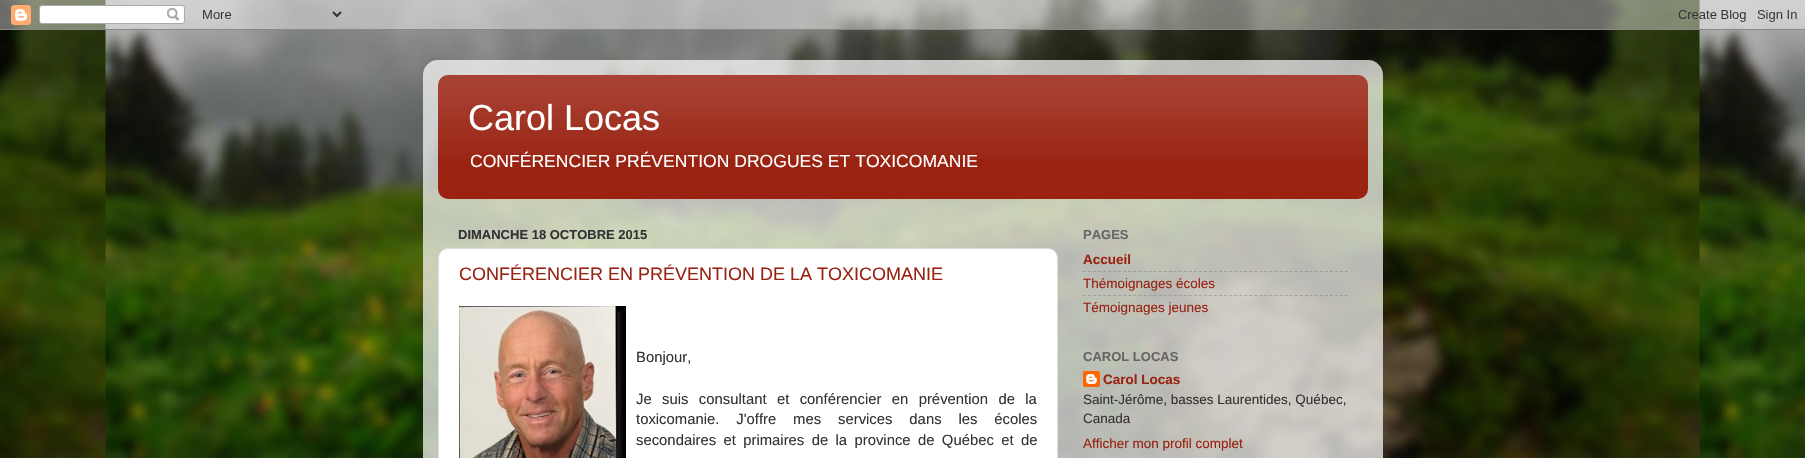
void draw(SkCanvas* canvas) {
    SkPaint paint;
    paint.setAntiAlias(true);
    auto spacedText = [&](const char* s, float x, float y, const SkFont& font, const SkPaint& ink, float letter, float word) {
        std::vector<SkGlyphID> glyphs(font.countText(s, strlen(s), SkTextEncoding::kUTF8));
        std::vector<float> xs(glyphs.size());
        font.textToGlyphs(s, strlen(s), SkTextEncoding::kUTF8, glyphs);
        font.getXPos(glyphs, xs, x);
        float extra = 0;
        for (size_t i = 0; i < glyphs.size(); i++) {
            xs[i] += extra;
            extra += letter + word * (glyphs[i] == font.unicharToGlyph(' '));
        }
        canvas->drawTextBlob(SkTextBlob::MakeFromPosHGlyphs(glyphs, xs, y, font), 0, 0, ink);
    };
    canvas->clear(0xFFFFFFFF);
    canvas->drawImageRect(SkImages::DeferredFromEncodedData(SkData::MakeFromFileName("img1.png")), SkRect::MakeXYWH(0, 0, 1805, 458), SkSamplingOptions());
    canvas->drawImageRect(SkImages::DeferredFromEncodedData(SkData::MakeFromFileName("img2.png")), SkRect::MakeXYWH(0, 0, 1805, 30), SkSamplingOptions());
    canvas->drawImageRect(SkImages::DeferredFromEncodedData(SkData::MakeFromFileName("img3.png")), SkRect::MakeXYWH(423, 60, 960, 398), SkSamplingOptions());
    paint.setColor(0xFF992211);
    canvas->drawRoundRect(SkRect::MakeXYWH(438, 75, 930, 124), 10, 10, paint);
    canvas->drawImageRect(SkImages::DeferredFromEncodedData(SkData::MakeFromFileName("img4.png")), SkRect::MakeXYWH(438, 75, 930, 84), SkSamplingOptions());
    SkFont font1(fontMgr->matchFamilyStyle("Liberation Sans", SkFontStyle::Normal()), 36);
    font1.setSubpixel(true);
    paint.setColor(0xFFFFFFFF);
    canvas->drawString("Carol Locas", 468, 130, font1, paint);
    SkFont font2(fontMgr->matchFamilyStyle("Liberation Sans", SkFontStyle::Normal()), 17.55f);
    font2.setSubpixel(true);
    canvas->drawString("CONFÉRENCIER PRÉVENTION DROGUES ET TOXICOMANIE", 470, 167, font2, paint);
    SkFont font3(fontMgr->matchFamilyStyle("Liberation Sans", SkFontStyle::Bold()), 13);
    font3.setSubpixel(true);
    paint.setColor(0xFF333333);
    canvas->drawString("DIMANCHE 18 OCTOBRE 2015", 458, 239, font3, paint);
    paint.setColor(0xFFFFFFFF);
    canvas->drawRoundRect(SkRect::MakeXYWH(438.5f, 248.5f, 619, 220), 9.5f, 9.5f, paint);
    paint.setStyle(SkPaint::kStroke_Style);
    paint.setStrokeWidth(1);
    paint.setColor(0xFFDDDDDD);
    canvas->drawRoundRect(SkRect::MakeXYWH(438.5f, 248.5f, 619, 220), 9.5f, 9.5f, paint);
    SkFont font4(fontMgr->matchFamilyStyle("Liberation Sans", SkFontStyle::Normal()), 18);
    font4.setSubpixel(true);
    paint.setStyle(SkPaint::kFill_Style);
    paint.setColor(0xFF992211);
    canvas->drawString("CONFÉRENCIER EN PRÉVENTION DE LA TOXICOMANIE", 459, 280, font4, paint);
    canvas->drawImageRect(SkImages::DeferredFromEncodedData(SkData::MakeFromFileName("img5.png")), SkRect::MakeXYWH(459, 306, 167, 152), SkSamplingOptions());
    SkFont font5(fontMgr->matchFamilyStyle("Liberation Sans", SkFontStyle::Normal()), 14.85f);
    font5.setSubpixel(true);
    paint.setColor(0xFF333333);
    canvas->drawString("Bonjour,", 636, 362, font5, paint);
    spacedText("Je suis consultant et conférencier en prévention de la", 636, 404, font5, paint, 0, 6.25f);
    spacedText("toxicomanie. J'offre mes services dans les écoles", 636, 424, font5, paint, 0, 12.75f);
    spacedText("secondaires et primaires de la province de Québec et de", 636, 445, font5, paint, 0, 3.25f);
    paint.setColor(0xFF666666);
    canvas->drawString("PAGES", 1083, 239, font3, paint);
    SkFont font6(fontMgr->matchFamilyStyle("Liberation Sans", SkFontStyle::Bold()), 13.5f);
    font6.setSubpixel(true);
    paint.setColor(0xFF992211);
    canvas->drawString("Accueil", 1083, 264, font6, paint);
    paint.setStyle(SkPaint::kStroke_Style);
    paint.setColor(0x80808080);
    paint.setPathEffect(SkDashPathEffect::Make({{3, 2.04f}}, 0));
    canvas->drawPath(SkPathBuilder().moveTo(1083, 271.5f).lineTo(1348, 271.5f).detach(), paint);
    paint.setPathEffect(nullptr);
    SkFont font7(fontMgr->matchFamilyStyle("Liberation Sans", SkFontStyle::Normal()), 13.5f);
    font7.setSubpixel(true);
    paint.setStyle(SkPaint::kFill_Style);
    paint.setColor(0xFF992211);
    canvas->drawString("Thémoignages écoles", 1083, 288, font7, paint);
    paint.setStyle(SkPaint::kStroke_Style);
    paint.setColor(0x80808080);
    paint.setPathEffect(SkDashPathEffect::Make({{3, 2.04f}}, 0));
    canvas->drawPath(SkPathBuilder().moveTo(1083, 295.5f).lineTo(1348, 295.5f).detach(), paint);
    paint.setPathEffect(nullptr);
    paint.setStyle(SkPaint::kFill_Style);
    paint.setColor(0xFF992211);
    canvas->drawString("Témoignages jeunes", 1083, 312, font7, paint);
    paint.setColor(0xFF666666);
    canvas->drawString("CAROL LOCAS", 1083, 361, font3, paint);
    canvas->drawImageRect(SkImages::DeferredFromEncodedData(SkData::MakeFromFileName("img6.png")), SkRect::MakeXYWH(1083, 371, 17, 16), SkSamplingOptions());
    paint.setColor(0xFF992211);
    canvas->drawString("Carol Locas", 1103, 384, font6, paint);
    paint.setColor(0xFF333333);
    canvas->drawString("Saint-Jérôme, basses Laurentides, Québec,", 1083, 404, font7, paint);
    canvas->drawString("Canada", 1083, 423, font7, paint);
    paint.setColor(0xFF992211);
    canvas->drawString("Afficher mon profil complet", 1083, 448, font7, paint);
}
